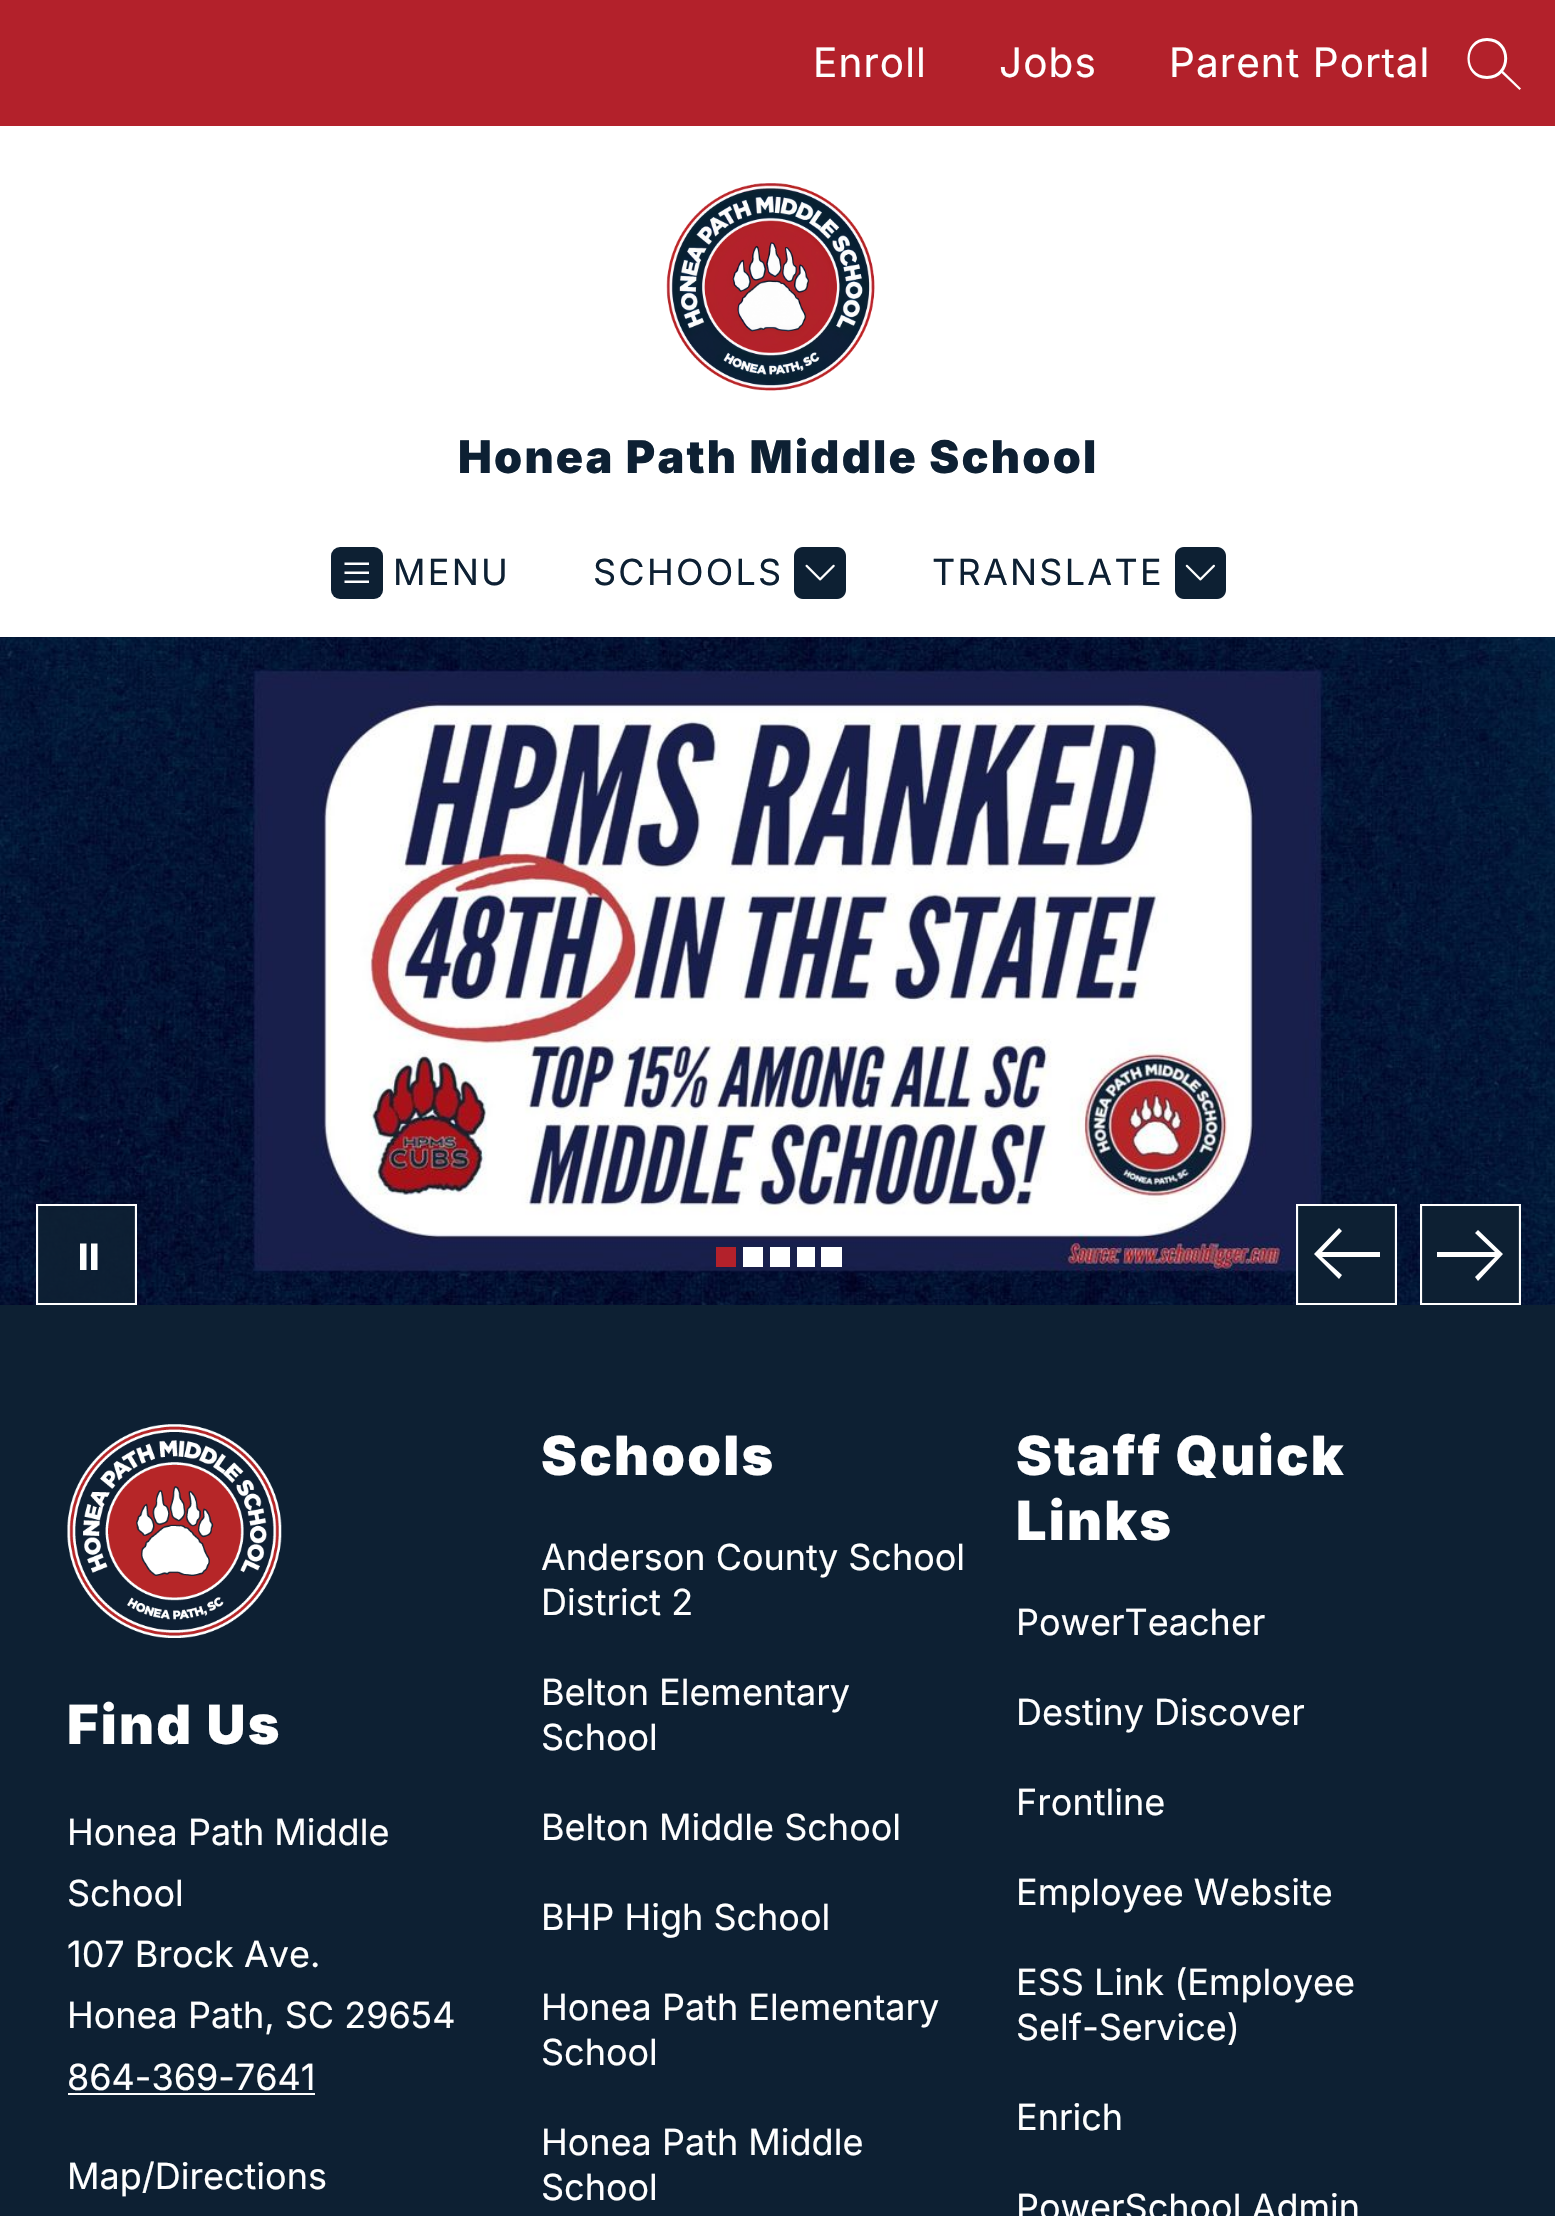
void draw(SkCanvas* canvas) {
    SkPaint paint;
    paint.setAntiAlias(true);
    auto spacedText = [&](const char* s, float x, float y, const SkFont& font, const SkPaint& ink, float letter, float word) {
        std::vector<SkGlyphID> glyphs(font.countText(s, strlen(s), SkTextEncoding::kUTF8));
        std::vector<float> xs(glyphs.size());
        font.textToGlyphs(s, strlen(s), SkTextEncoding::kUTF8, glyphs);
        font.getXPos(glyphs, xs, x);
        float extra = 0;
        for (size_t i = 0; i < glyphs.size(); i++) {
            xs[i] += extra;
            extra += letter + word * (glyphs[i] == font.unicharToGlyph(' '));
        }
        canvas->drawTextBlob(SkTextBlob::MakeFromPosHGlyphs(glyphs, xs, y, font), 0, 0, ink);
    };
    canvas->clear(0xFF0D2033);
    paint.setColor(0xFFFFFFFF);
    canvas->drawRect(SkRect::MakeXYWH(0, 126, 1555, 511), paint);
    paint.setColor(0xFFB3212B);
    canvas->drawRect(SkRect::MakeXYWH(0, 0, 1555, 126), paint);
    SkFont font1(fontMgr->matchFamilyStyle("Inter", SkFontStyle::Normal()), 40.5f);
    font1.setSubpixel(true);
    paint.setColor(0xFFFFFFFF);
    spacedText("Enroll", 813, 77, font1, paint, 1.1f, 0);
    spacedText("Jobs", 999, 77, font1, paint, 1.1f, 0);
    spacedText("Parent Portal", 1169, 77, font1, paint, 1.1f, 0);
    canvas->drawPath(SkPathBuilder(SkPathFillType::kEvenOdd).moveTo(1487, 76).cubicTo(1510, 76, 1510, 41, 1487, 41).cubicTo(1464, 41, 1464, 76, 1487, 76).close().moveTo(1487, 79).cubicTo(1514, 79, 1514, 38, 1487, 38).cubicTo(1461, 38, 1461, 79, 1487, 79).close().detach(), paint);
    canvas->drawPath(SkPathBuilder(SkPathFillType::kEvenOdd).moveTo(1519.5f, 90).lineTo(1501, 72.5f).lineTo(1502.5f, 70.5f).lineTo(1521, 88.5f).close().detach(), paint);
    canvas->drawImageRect(SkImages::DeferredFromEncodedData(SkData::MakeFromFileName("img1.png")), SkRect::MakeXYWH(666, 183, 209, 208), SkSamplingOptions());
    SkFont font2(fontMgr->matchFamilyStyle("Inter", SkFontStyle(900, SkFontStyle::kNormal_Width, SkFontStyle::kUpright_Slant)), 45);
    font2.setSubpixel(true);
    paint.setColor(0xFF0D2033);
    spacedText("Honea Path Middle School", 458, 473, font2, paint, 2.25f, 0);
    canvas->drawRoundRect(SkRect::MakeXYWH(331, 547, 52, 52), 9, 9, paint);
    paint.setColor(0xFFFFFFFF);
    canvas->drawPath(SkPathBuilder(SkPathFillType::kEvenOdd).moveTo(344.5f, 562.5f).lineTo(369, 562.5f).lineTo(369, 565).lineTo(344.5f, 565).close().moveTo(344.5f, 571.5f).lineTo(369, 571.5f).lineTo(369, 574).lineTo(344.5f, 574).close().moveTo(369, 580.5f).lineTo(344.5f, 580.5f).lineTo(344.5f, 583).lineTo(369, 583).close().detach(), paint);
    SkFont font3(fontMgr->matchFamilyStyle("Inter", SkFontStyle::Normal()), 36);
    font3.setSubpixel(true);
    paint.setColor(0xFF0D2033);
    spacedText("MENU", 393, 585, font3, paint, 2.25f, 0);
    spacedText("SCHOOLS", 593, 585, font3, paint, 2.25f, 0);
    canvas->drawImageRect(SkImages::DeferredFromEncodedData(SkData::MakeFromFileName("img2.png")), SkRect::MakeXYWH(794, 547, 52, 52), SkSamplingOptions());
    spacedText("TRANSLATE", 932, 585, font3, paint, 2.25f, 0);
    canvas->drawImageRect(SkImages::DeferredFromEncodedData(SkData::MakeFromFileName("img3.png")), SkRect::MakeXYWH(1175, 547, 51, 52), SkSamplingOptions());
    canvas->drawImageRect(SkImages::DeferredFromEncodedData(SkData::MakeFromFileName("img4.png")), SkRect::MakeXYWH(0, 637, 1555, 668), SkSamplingOptions());
    paint.setColor(0xE60D2033);
    canvas->drawRect(SkRect::MakeXYWH(38, 1206, 97, 97), paint);
    canvas->save();
    canvas->clipRect(SkRect::MakeXYWH(36, 1204, 101, 101));
    paint.setStyle(SkPaint::kStroke_Style);
    paint.setStrokeWidth(2.2f);
    paint.setColor(0xFFFFFFFF);
    canvas->drawPath(SkPathBuilder().moveTo(37, 1205).lineTo(136, 1205).lineTo(136, 1304).lineTo(37, 1304).close().detach(), paint);
    canvas->restore();
    paint.setStyle(SkPaint::kFill_Style);
    canvas->drawPath(SkPathBuilder(SkPathFillType::kEvenOdd).moveTo(86.5f, 1243.5f).lineTo(80, 1243.5f).lineTo(80, 1270).lineTo(86.5f, 1270).close().moveTo(97.5f, 1243.5f).lineTo(91, 1243.5f).lineTo(91, 1270).lineTo(97.5f, 1270).close().detach(), paint);
    paint.setColor(0xFFB3212B);
    canvas->drawRect(SkRect::MakeXYWH(716, 1247, 20, 20), paint);
    paint.setColor(0xFFFFFFFF);
    canvas->drawRect(SkRect::MakeXYWH(743, 1247, 20, 20), paint);
    canvas->drawRect(SkRect::MakeXYWH(770, 1247, 20, 20), paint);
    canvas->drawRect(SkRect::MakeXYWH(797, 1247, 18, 20), paint);
    canvas->drawRect(SkRect::MakeXYWH(821, 1247, 21, 20), paint);
    paint.setColor(0xFF0D2033);
    canvas->drawRect(SkRect::MakeXYWH(1298, 1206, 97, 97), paint);
    canvas->save();
    canvas->clipRect(SkRect::MakeXYWH(1296, 1204, 101, 101));
    paint.setStyle(SkPaint::kStroke_Style);
    paint.setColor(0xFFFFFFFF);
    canvas->drawPath(SkPathBuilder().moveTo(1396, 1304).lineTo(1297, 1304).lineTo(1297, 1205).lineTo(1396, 1205).close().detach(), paint);
    canvas->restore();
    paint.setStyle(SkPaint::kFill_Style);
    canvas->drawPath(SkPathBuilder().moveTo(1339, 1279).lineTo(1314, 1254).lineTo(1339, 1228).lineTo(1342, 1231).lineTo(1322, 1252).lineTo(1380, 1252).lineTo(1380, 1257).lineTo(1322, 1257).lineTo(1342, 1275).close().detach(), paint);
    paint.setColor(0xFF0D2033);
    canvas->drawRect(SkRect::MakeXYWH(1422, 1206, 97, 97), paint);
    canvas->save();
    canvas->clipRect(SkRect::MakeXYWH(1420, 1204, 101, 101));
    paint.setStyle(SkPaint::kStroke_Style);
    paint.setColor(0xFFFFFFFF);
    canvas->drawPath(SkPathBuilder().moveTo(1421, 1205).lineTo(1520, 1205).lineTo(1520, 1304).lineTo(1421, 1304).close().detach(), paint);
    canvas->restore();
    paint.setStyle(SkPaint::kFill_Style);
    canvas->drawPath(SkPathBuilder().moveTo(1478, 1230).lineTo(1503, 1254).lineTo(1478, 1281).lineTo(1475, 1277).lineTo(1495, 1257).lineTo(1437, 1257).lineTo(1437, 1252).lineTo(1495, 1252).lineTo(1475, 1233).close().detach(), paint);
    canvas->drawImageRect(SkImages::DeferredFromEncodedData(SkData::MakeFromFileName("img5.png")), SkRect::MakeXYWH(67, 1424, 215, 214), SkSamplingOptions());
    SkFont font4(fontMgr->matchFamilyStyle("Inter", SkFontStyle(900, SkFontStyle::kNormal_Width, SkFontStyle::kUpright_Slant)), 54);
    font4.setSubpixel(true);
    spacedText("Find Us", 67, 1744, font4, paint, 2.25f, 0);
    canvas->drawString("Honea Path Middle", 67, 1845, font3, paint);
    canvas->drawString("School", 67, 1906, font3, paint);
    canvas->drawString("107 Brock Ave.", 67, 1967, font3, paint);
    canvas->drawString("Honea Path, SC 29654", 67, 2028, font3, paint);
    canvas->drawString("864-369-7641", 67, 2090, font3, paint);
    canvas->drawRect(SkRect::MakeXYWH(68, 2093, 247, 2), paint);
    canvas->drawString("Map/Directions", 67, 2189, font3, paint);
    spacedText("Schools", 541, 1475, font4, paint, 2.25f, 0);
    canvas->drawString("Anderson County School", 541, 1570, font3, paint);
    canvas->drawString("District 2", 541, 1615, font3, paint);
    canvas->drawString("Belton Elementary", 541, 1705, font3, paint);
    canvas->drawString("School", 541, 1750, font3, paint);
    canvas->drawString("Belton Middle School", 541, 1840, font3, paint);
    canvas->drawString("BHP High School", 541, 1930, font3, paint);
    canvas->drawString("Honea Path Elementary", 541, 2020, font3, paint);
    canvas->drawString("School", 541, 2065, font3, paint);
    canvas->drawString("Honea Path Middle", 541, 2155, font3, paint);
    canvas->drawString("School", 541, 2200, font3, paint);
    spacedText("Staff Quick", 1016, 1475, font4, paint, 2.25f, 0);
    spacedText("Links", 1016, 1540, font4, paint, 2.25f, 0);
    canvas->drawString("PowerTeacher", 1016, 1635, font3, paint);
    canvas->drawString("Destiny Discover", 1016, 1725, font3, paint);
    canvas->drawString("Frontline", 1016, 1815, font3, paint);
    canvas->drawString("Employee Website", 1016, 1905, font3, paint);
    canvas->drawString("ESS Link (Employee", 1016, 1995, font3, paint);
    canvas->drawString("Self-Service)", 1016, 2040, font3, paint);
    canvas->drawString("Enrich", 1016, 2130, font3, paint);
    canvas->drawString("PowerSchool Admin", 1016, 2220, font3, paint);
}
